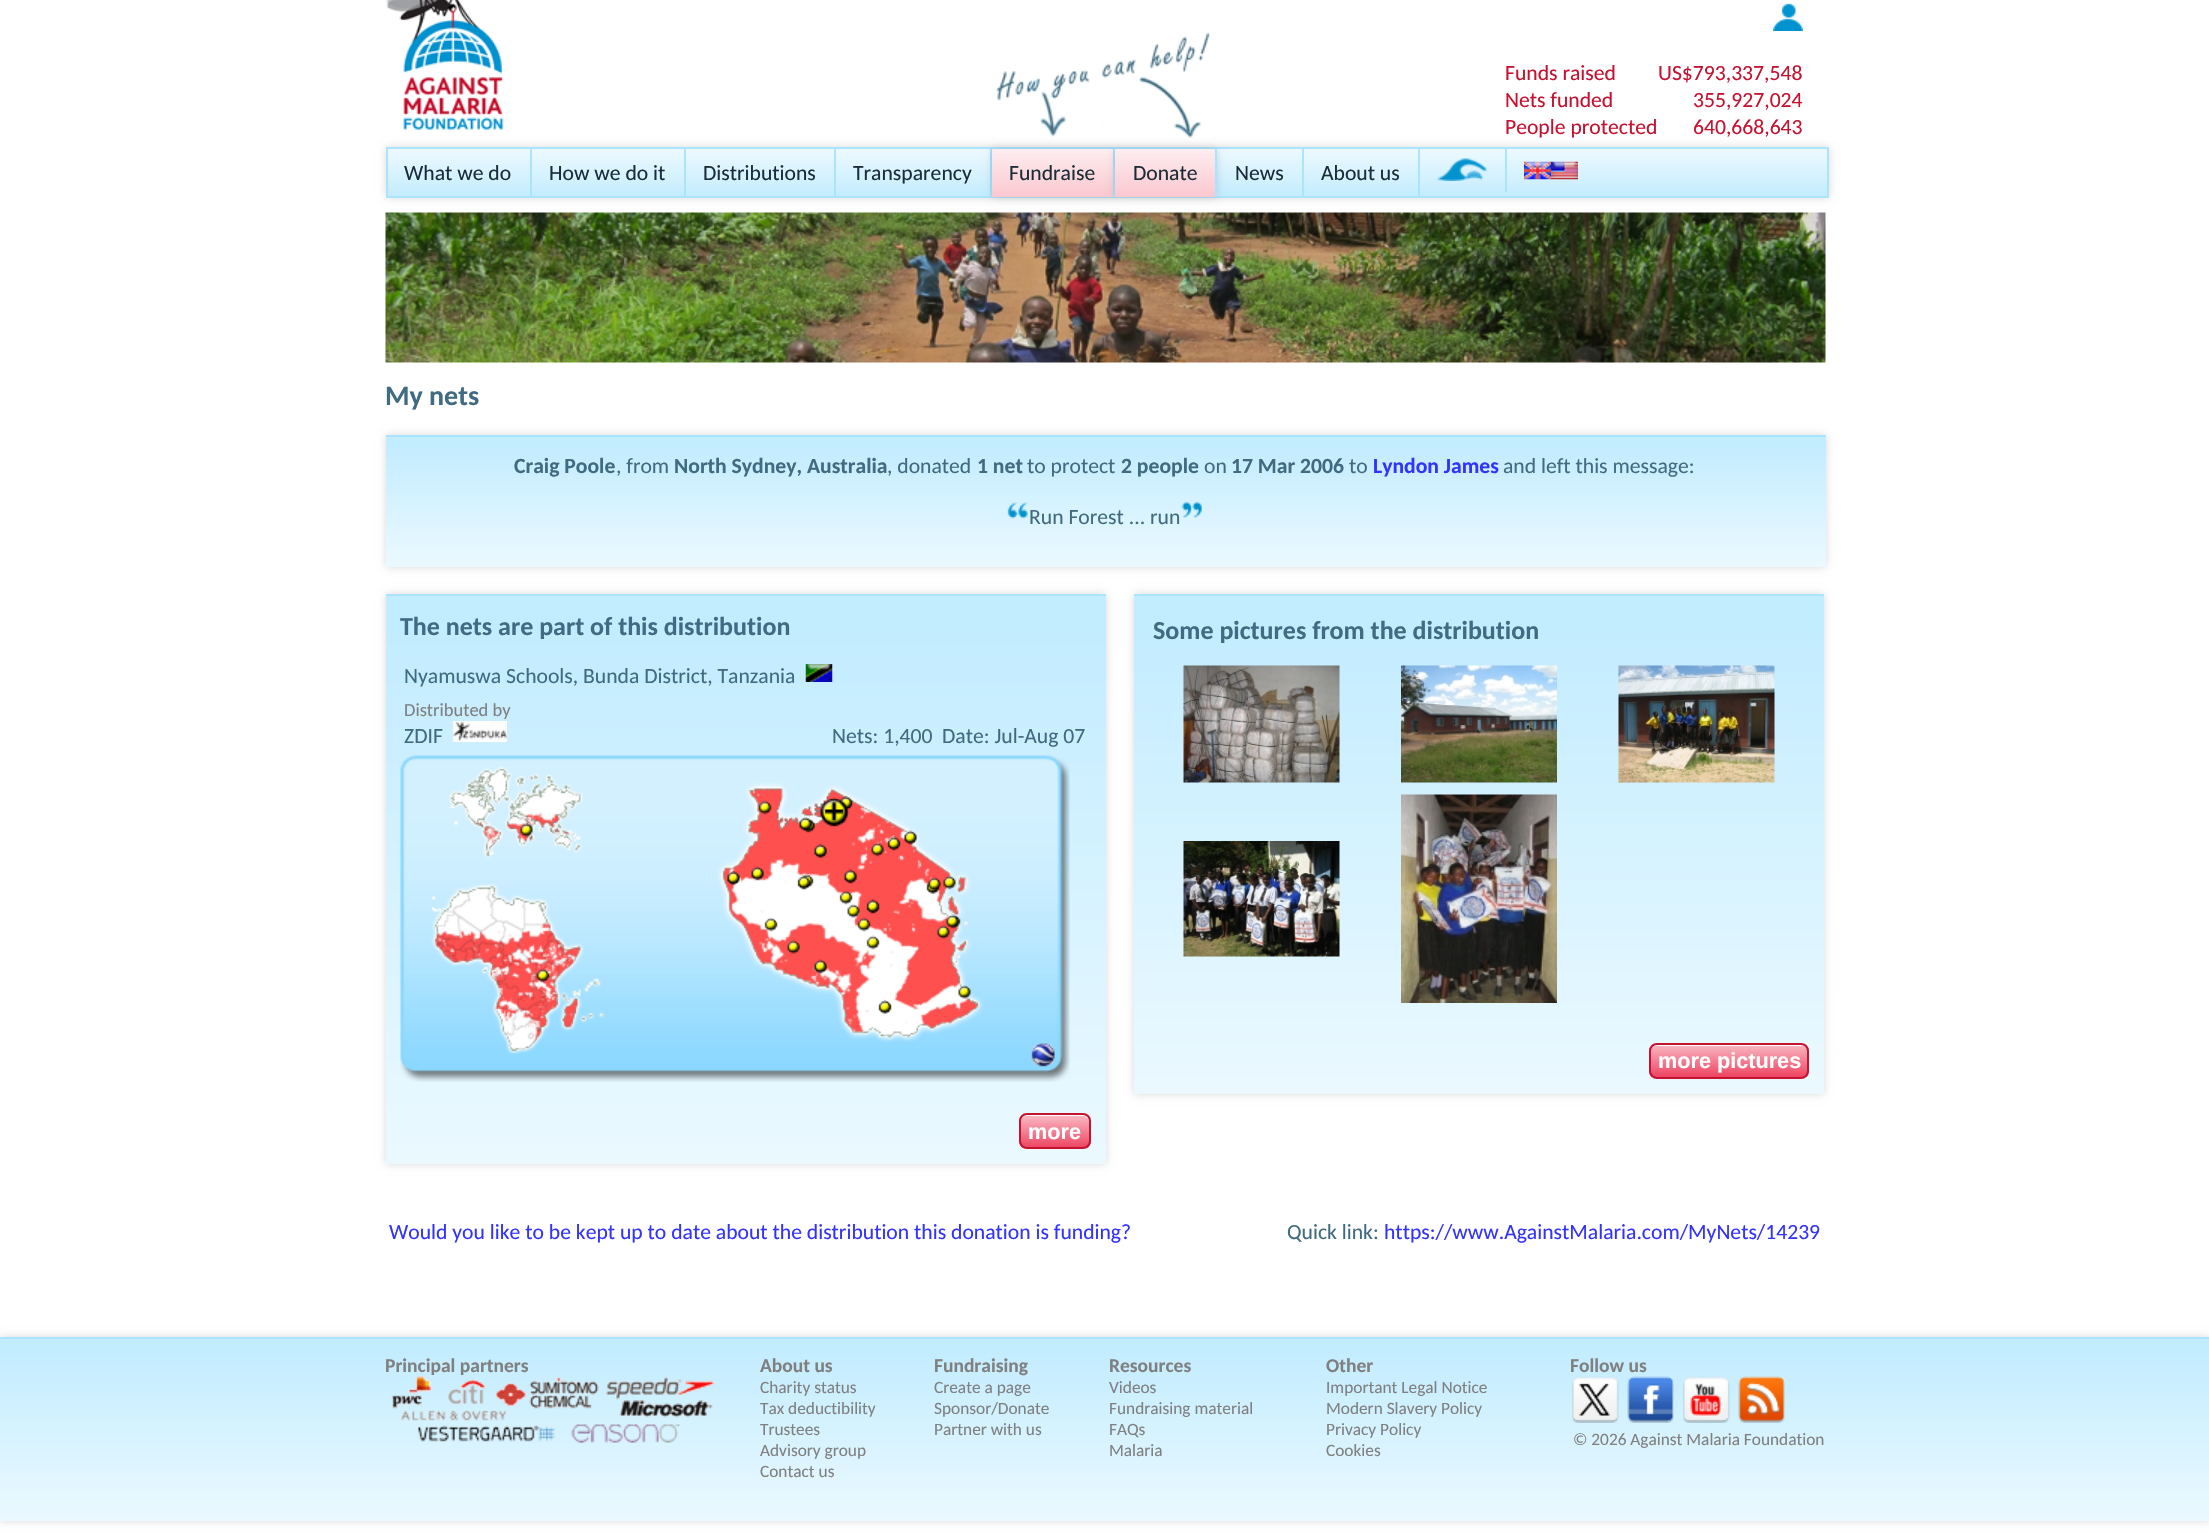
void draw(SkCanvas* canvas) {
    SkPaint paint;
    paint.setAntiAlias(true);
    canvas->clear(0xFFFFFFFF);
    canvas->drawImageRect(SkImages::DeferredFromEncodedData(SkData::MakeFromFileName("img1.png")), SkRect::MakeXYWH(386, 0, 118, 130), SkSamplingOptions());
    canvas->drawImageRect(SkImages::DeferredFromEncodedData(SkData::MakeFromFileName("img2.png")), SkRect::MakeXYWH(1773, 1, 30, 30), SkSamplingOptions());
    SkFont font1(fontMgr->matchFamilyStyle("Carlito", SkFontStyle::Normal()), 21.65f);
    font1.setSubpixel(true);
    paint.setColor(0xFFC51230);
    canvas->drawString("Funds raised", 1505, 80, font1, paint);
    canvas->drawString("US$793,337,548", 1658, 80, font1, paint);
    canvas->drawString("Nets funded", 1505, 107, font1, paint);
    canvas->drawString("355,927,024", 1693, 107, font1, paint);
    canvas->drawString("People protected", 1505, 134, font1, paint);
    canvas->drawString("640,668,643", 1693, 134, font1, paint);
    paint.setColor(0x26000000);
    paint.setMaskFilter(SkMaskFilter::MakeBlur(kNormal_SkBlurStyle, 4));
    canvas->drawRect(SkRect::MakeXYWH(386, 147, 1443, 51), paint);
    paint.setMaskFilter(nullptr);
    {
        const SkColor colors[] = {0xFFEBF9FF, 0xFFC2ECFF};
        const float stops[] = {0.05f, 1};
        const SkPoint ends[] = {{387, 149}, {387, 197}};
        paint.setShader(SkGradientShader::MakeLinear(ends, colors, stops, 2, SkTileMode::kClamp));
        paint.setAlpha(255);
    }
    canvas->drawRect(SkRect::MakeXYWH(388, 149, 1439, 47), paint);
    paint.setStyle(SkPaint::kStroke_Style);
    paint.setStrokeWidth(2);
    paint.setShader(nullptr);
    paint.setColor(0xFFABE4FF);
    canvas->drawRect(SkRect::MakeXYWH(387, 148, 1441, 49), paint);
    paint.setStyle(SkPaint::kFill_Style);
    canvas->drawRect(SkRect::MakeXYWH(990, 149, 2, 48), paint);
    paint.setColor(0x26000000);
    paint.setMaskFilter(SkMaskFilter::MakeBlur(kNormal_SkBlurStyle, 4));
    canvas->drawRect(SkRect::MakeXYWH(992, 149, 123, 48), paint);
    paint.setMaskFilter(nullptr);
    {
        const SkColor colors[] = {0xFFFDECEF, 0xFFFAC7CF};
        const float stops[] = {0.05f, 1};
        const SkPoint ends[] = {{992, 149}, {992, 197}};
        paint.setShader(SkGradientShader::MakeLinear(ends, colors, stops, 2, SkTileMode::kClamp));
        paint.setAlpha(255);
    }
    canvas->drawRect(SkRect::MakeXYWH(992, 149, 121, 48), paint);
    paint.setShader(nullptr);
    paint.setColor(0xFFABE4FF);
    canvas->drawRect(SkRect::MakeXYWH(1113, 149, 2, 48), paint);
    paint.setColor(0x26000000);
    paint.setMaskFilter(SkMaskFilter::MakeBlur(kNormal_SkBlurStyle, 4));
    canvas->drawRect(SkRect::MakeXYWH(1115, 149, 102, 48), paint);
    paint.setMaskFilter(nullptr);
    canvas->drawImageRect(SkImages::DeferredFromEncodedData(SkData::MakeFromFileName("img3.png")), SkRect::MakeXYWH(996, 32, 214, 106), SkSamplingOptions());
    paint.setColor(0xFFABE4FF);
    canvas->drawRect(SkRect::MakeXYWH(530, 149, 2, 48), paint);
    paint.setColor(0xFF1B2D36);
    canvas->drawString("What we do", 404, 180, font1, paint);
    paint.setColor(0xFFABE4FF);
    canvas->drawRect(SkRect::MakeXYWH(684, 149, 2, 48), paint);
    paint.setColor(0xFF1B2D36);
    canvas->drawString("How we do it", 549, 180, font1, paint);
    paint.setColor(0xFFABE4FF);
    canvas->drawRect(SkRect::MakeXYWH(834, 149, 2, 48), paint);
    paint.setColor(0xFF1B2D36);
    canvas->drawString("Distributions", 703, 180, font1, paint);
    canvas->drawString("Transparency", 853, 180, font1, paint);
    canvas->drawString("Fundraise", 1009, 180, font1, paint);
    {
        const SkColor colors[] = {0xFFFDECEF, 0xFFFAC7CF};
        const float stops[] = {0.05f, 1};
        const SkPoint ends[] = {{1115, 149}, {1115, 197}};
        paint.setShader(SkGradientShader::MakeLinear(ends, colors, stops, 2, SkTileMode::kClamp));
        paint.setAlpha(255);
    }
    canvas->drawRect(SkRect::MakeXYWH(1115, 149, 100, 48), paint);
    paint.setShader(nullptr);
    paint.setColor(0xFFABE4FF);
    canvas->drawRect(SkRect::MakeXYWH(1215, 149, 2, 48), paint);
    paint.setColor(0xFF1B2D36);
    canvas->drawString("Donate", 1133, 180, font1, paint);
    paint.setColor(0xFFABE4FF);
    canvas->drawRect(SkRect::MakeXYWH(1302, 149, 2, 48), paint);
    paint.setColor(0xFF1B2D36);
    canvas->drawString("News", 1235, 180, font1, paint);
    paint.setColor(0xFFABE4FF);
    canvas->drawRect(SkRect::MakeXYWH(1418, 149, 2, 48), paint);
    paint.setColor(0xFF1B2D36);
    canvas->drawString("About us", 1321, 180, font1, paint);
    paint.setColor(0xFFABE4FF);
    canvas->drawRect(SkRect::MakeXYWH(1505, 149, 2, 43), paint);
    canvas->drawImageRect(SkImages::DeferredFromEncodedData(SkData::MakeFromFileName("img4.png")), SkRect::MakeXYWH(1437, 158, 50, 23), SkSamplingOptions());
    canvas->drawImageRect(SkImages::DeferredFromEncodedData(SkData::MakeFromFileName("img5.png")), SkRect::MakeXYWH(1524, 161, 27, 19), SkSamplingOptions());
    canvas->drawImageRect(SkImages::DeferredFromEncodedData(SkData::MakeFromFileName("img6.png")), SkRect::MakeXYWH(1551, 161, 27, 19), SkSamplingOptions());
    canvas->drawImageRect(SkImages::DeferredFromEncodedData(SkData::MakeFromFileName("img7.png")), SkRect::MakeXYWH(385, 212, 1441, 151), SkSamplingOptions());
    SkFont font2(fontMgr->matchFamilyStyle("Carlito", SkFontStyle::Bold()), 28);
    font2.setSubpixel(true);
    paint.setColor(0xFF406B80);
    canvas->drawString("My nets", 385, 405, font2, paint);
    paint.setColor(0x26000000);
    paint.setMaskFilter(SkMaskFilter::MakeBlur(kNormal_SkBlurStyle, 4));
    canvas->drawRect(SkRect::MakeXYWH(386, 435, 1440, 132), paint);
    paint.setMaskFilter(nullptr);
    {
        const SkColor colors[] = {0xFFC2ECFF, 0xFFEBF9FF};
        const float stops[] = {0.05f, 1};
        const SkPoint ends[] = {{386, 437}, {386, 567}};
        paint.setShader(SkGradientShader::MakeLinear(ends, colors, stops, 2, SkTileMode::kClamp));
        paint.setAlpha(255);
    }
    canvas->drawRect(SkRect::MakeXYWH(386, 437, 1440, 130), paint);
    paint.setShader(nullptr);
    paint.setColor(0xFFABE4FF);
    canvas->drawRect(SkRect::MakeXYWH(386, 435, 1440, 2), paint);
    SkFont font3(fontMgr->matchFamilyStyle("Carlito", SkFontStyle::Bold()), 21.65f);
    font3.setSubpixel(true);
    paint.setColor(0xFF406B80);
    canvas->drawString("Craig Poole", 514, 473, font3, paint);
    canvas->drawString(", from", 616, 473, font1, paint);
    canvas->drawString("North Sydney, Australia", 674, 473, font3, paint);
    canvas->drawString(", donated", 887, 473, font1, paint);
    canvas->drawString("1 net", 977, 473, font3, paint);
    canvas->drawString("to protect", 1027, 473, font1, paint);
    canvas->drawString("2 people", 1121, 473, font3, paint);
    canvas->drawString("on", 1204, 473, font1, paint);
    canvas->drawString("17 Mar 2006", 1231, 473, font3, paint);
    canvas->drawString("to", 1349, 473, font1, paint);
    paint.setColor(0xFF3333FF);
    canvas->drawString("Lyndon James", 1373, 473, font3, paint);
    paint.setColor(0xFF406B80);
    canvas->drawString("and left this message:", 1503, 473, font1, paint);
    canvas->drawImageRect(SkImages::DeferredFromEncodedData(SkData::MakeFromFileName("img8.png")), SkRect::MakeXYWH(1007, 502, 21, 17), SkSamplingOptions());
    canvas->drawString("Run Forest ... run", 1029, 524, font1, paint);
    canvas->drawImageRect(SkImages::DeferredFromEncodedData(SkData::MakeFromFileName("img9.png")), SkRect::MakeXYWH(1181, 501, 21, 18), SkSamplingOptions());
    paint.setColor(0x26000000);
    paint.setMaskFilter(SkMaskFilter::MakeBlur(kNormal_SkBlurStyle, 4));
    canvas->drawRect(SkRect::MakeXYWH(386, 594, 720, 570), paint);
    paint.setMaskFilter(nullptr);
    {
        const SkColor colors[] = {0xFFC2ECFF, 0xFFEBF9FF};
        const float stops[] = {0.05f, 1};
        const SkPoint ends[] = {{386, 596}, {386, 1164}};
        paint.setShader(SkGradientShader::MakeLinear(ends, colors, stops, 2, SkTileMode::kClamp));
        paint.setAlpha(255);
    }
    canvas->drawRect(SkRect::MakeXYWH(386, 596, 720, 568), paint);
    paint.setShader(nullptr);
    paint.setColor(0xFFABE4FF);
    canvas->drawRect(SkRect::MakeXYWH(386, 594, 720, 2), paint);
    SkFont font4(fontMgr->matchFamilyStyle("Carlito", SkFontStyle::Bold()), 26);
    font4.setSubpixel(true);
    paint.setColor(0xFF406B80);
    canvas->drawString("The nets are part of this distribution", 400, 635, font4, paint);
    canvas->drawString("Nyamuswa Schools, Bunda District, Tanzania", 404, 683, font1, paint);
    canvas->drawImageRect(SkImages::DeferredFromEncodedData(SkData::MakeFromFileName("img10.png")), SkRect::MakeXYWH(805, 664, 28, 18), SkSamplingOptions());
    SkFont font5(fontMgr->matchFamilyStyle("Carlito", SkFontStyle::Normal()), 18.5f);
    font5.setSubpixel(true);
    paint.setColor(0xFF808080);
    canvas->drawString("Distributed by", 404, 716, font5, paint);
    paint.setColor(0xFF406B80);
    canvas->drawString("ZDIF", 404, 743, font1, paint);
    canvas->drawImageRect(SkImages::DeferredFromEncodedData(SkData::MakeFromFileName("img11.png")), SkRect::MakeXYWH(453, 721, 54, 21), SkSamplingOptions());
    canvas->drawString("Nets: 1,400", 832, 743, font1, paint);
    canvas->drawString("Date: Jul-Aug 07", 942, 743, font1, paint);
    canvas->drawImageRect(SkImages::DeferredFromEncodedData(SkData::MakeFromFileName("img12.png")), SkRect::MakeXYWH(400, 755, 670, 327), SkSamplingOptions());
    canvas->save();
    canvas->clipPath(SkPathBuilder().moveTo(1027, 1113).lineTo(1083, 1113).cubicTo(1087.5f, 1113, 1091, 1116.5f, 1091, 1121).lineTo(1091, 1141).cubicTo(1091, 1145.5f, 1087.5f, 1149, 1083, 1149).lineTo(1027, 1149).cubicTo(1022.5f, 1149, 1019, 1145.5f, 1019, 1141).lineTo(1019, 1121).cubicTo(1019, 1116.5f, 1022.5f, 1113, 1027, 1113).close().detach(), true);
    {
        const SkColor colors[] = {0xFFF8B4C0, 0xFFEE4461};
        const float stops[] = {0.05f, 1};
        const SkPoint ends[] = {{1020, 1115}, {1020, 1148}};
        paint.setShader(SkGradientShader::MakeLinear(ends, colors, stops, 2, SkTileMode::kClamp));
        paint.setAlpha(255);
    }
    canvas->drawRect(SkRect::MakeXYWH(1019, 1115, 72, 33), paint);
    canvas->restore();
    paint.setShader(nullptr);
    paint.setColor(0xFFFFFFFF);
    canvas->drawPath(SkPathBuilder().moveTo(1026, 1116).lineTo(1083, 1116).cubicTo(1086, 1116, 1089, 1119, 1089, 1122).cubicTo(1089, 1113, 1080, 1115, 1074, 1115).lineTo(1036, 1115).cubicTo(1029, 1115, 1020, 1113, 1020, 1122).cubicTo(1020, 1119, 1023, 1116, 1026, 1116).close().detach(), paint);
    paint.setStyle(SkPaint::kStroke_Style);
    paint.setColor(0xFFC51230);
    canvas->drawRoundRect(SkRect::MakeXYWH(1020, 1114, 70, 34), 7, 7, paint);
    SkFont font6(fontMgr->matchFamilyStyle("Liberation Sans", SkFontStyle::Bold()), 21.65f);
    font6.setSubpixel(true);
    paint.setStyle(SkPaint::kFill_Style);
    paint.setColor(0xFFFFFFFF);
    canvas->drawString("more", 1028, 1139, font6, paint);
    paint.setColor(0x26000000);
    paint.setMaskFilter(SkMaskFilter::MakeBlur(kNormal_SkBlurStyle, 4));
    canvas->drawRect(SkRect::MakeXYWH(1134, 594, 690, 500), paint);
    paint.setMaskFilter(nullptr);
    {
        const SkColor colors[] = {0xFFC2ECFF, 0xFFEBF9FF};
        const float stops[] = {0.05f, 1};
        const SkPoint ends[] = {{1134, 596}, {1134, 1094}};
        paint.setShader(SkGradientShader::MakeLinear(ends, colors, stops, 2, SkTileMode::kClamp));
        paint.setAlpha(255);
    }
    canvas->drawRect(SkRect::MakeXYWH(1134, 596, 690, 498), paint);
    paint.setShader(nullptr);
    paint.setColor(0xFFABE4FF);
    canvas->drawRect(SkRect::MakeXYWH(1134, 594, 690, 2), paint);
    paint.setColor(0xFF406B80);
    canvas->drawString("Some pictures from the distribution", 1153, 639, font4, paint);
    canvas->drawImageRect(SkImages::DeferredFromEncodedData(SkData::MakeFromFileName("img13.png")), SkRect::MakeXYWH(1183, 665, 157, 118), SkSamplingOptions());
    canvas->drawImageRect(SkImages::DeferredFromEncodedData(SkData::MakeFromFileName("img14.png")), SkRect::MakeXYWH(1401, 665, 156, 118), SkSamplingOptions());
    canvas->drawImageRect(SkImages::DeferredFromEncodedData(SkData::MakeFromFileName("img15.png")), SkRect::MakeXYWH(1618, 665, 157, 118), SkSamplingOptions());
    canvas->drawImageRect(SkImages::DeferredFromEncodedData(SkData::MakeFromFileName("img16.png")), SkRect::MakeXYWH(1183, 841, 157, 116), SkSamplingOptions());
    canvas->drawImageRect(SkImages::DeferredFromEncodedData(SkData::MakeFromFileName("img17.png")), SkRect::MakeXYWH(1401, 794, 156, 209), SkSamplingOptions());
    canvas->save();
    canvas->clipPath(SkPathBuilder().moveTo(1657, 1043).lineTo(1801, 1043).cubicTo(1805.5f, 1043, 1809, 1046.5f, 1809, 1051).lineTo(1809, 1071).cubicTo(1809, 1075.5f, 1805.5f, 1079, 1801, 1079).lineTo(1657, 1079).cubicTo(1652.5f, 1079, 1649, 1075.5f, 1649, 1071).lineTo(1649, 1051).cubicTo(1649, 1046.5f, 1652.5f, 1043, 1657, 1043).close().detach(), true);
    {
        const SkColor colors[] = {0xFFF8B4C0, 0xFFEE4461};
        const float stops[] = {0.05f, 1};
        const SkPoint ends[] = {{1650, 1044}, {1650, 1077}};
        paint.setShader(SkGradientShader::MakeLinear(ends, colors, stops, 2, SkTileMode::kClamp));
        paint.setAlpha(255);
    }
    canvas->drawRect(SkRect::MakeXYWH(1649, 1044, 160, 33), paint);
    canvas->restore();
    paint.setShader(nullptr);
    paint.setColor(0xFFFFFFFF);
    canvas->drawPath(SkPathBuilder().moveTo(1656, 1046).lineTo(1802, 1046).cubicTo(1805, 1046, 1808, 1048, 1808, 1052).lineTo(1808, 1050).cubicTo(1808, 1047, 1805, 1044, 1802, 1044).lineTo(1656, 1044).cubicTo(1653, 1044, 1650, 1047, 1650, 1050).lineTo(1650, 1052).cubicTo(1650, 1048, 1653, 1046, 1656, 1046).close().detach(), paint);
    paint.setStyle(SkPaint::kStroke_Style);
    paint.setColor(0xFFC51230);
    canvas->drawRoundRect(SkRect::MakeXYWH(1650, 1044, 158, 34), 7, 7, paint);
    paint.setStyle(SkPaint::kFill_Style);
    paint.setColor(0xFFFFFFFF);
    canvas->drawString("more pictures", 1658, 1068, font6, paint);
    paint.setColor(0xFF3333FF);
    canvas->drawString("Would you like to be kept up to date about the distribution this donation is funding?", 389, 1239, font1, paint);
    paint.setColor(0xFF406B80);
    canvas->drawString("Quick link:", 1287, 1239, font1, paint);
    paint.setColor(0xFF3333FF);
    canvas->drawString("https://www.AgainstMalaria.com/MyNets/14239", 1384, 1239, font1, paint);
    paint.setColor(0x26000000);
    paint.setMaskFilter(SkMaskFilter::MakeBlur(kNormal_SkBlurStyle, 4));
    canvas->drawRect(SkRect::MakeXYWH(0, 1337, 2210, 184), paint);
    paint.setMaskFilter(nullptr);
    {
        const SkColor colors[] = {0xFFC2ECFF, 0xFFEBF9FF};
        const float stops[] = {0.05f, 1};
        const SkPoint ends[] = {{0, 1338}, {0, 1521}};
        paint.setShader(SkGradientShader::MakeLinear(ends, colors, stops, 2, SkTileMode::kClamp));
        paint.setAlpha(255);
    }
    canvas->drawRect(SkRect::MakeXYWH(0, 1339, 2209, 182), paint);
    paint.setShader(nullptr);
    paint.setColor(0xFFABE4FF);
    canvas->drawRect(SkRect::MakeXYWH(0, 1337, 2209, 2), paint);
    SkFont font7(fontMgr->matchFamilyStyle("Carlito", SkFontStyle::Bold()), 19.5f);
    font7.setSubpixel(true);
    paint.setColor(0xFF808080);
    canvas->drawString("Principal partners", 385, 1372, font7, paint);
    canvas->drawString("About us", 760, 1372, font7, paint);
    canvas->drawString("Fundraising", 934, 1372, font7, paint);
    canvas->drawString("Resources", 1109, 1372, font7, paint);
    canvas->drawString("Other", 1326, 1372, font7, paint);
    canvas->drawString("Follow us", 1570, 1372, font7, paint);
    canvas->drawImageRect(SkImages::DeferredFromEncodedData(SkData::MakeFromFileName("img18.png")), SkRect::MakeXYWH(391, 1376, 324, 67), SkSamplingOptions());
    SkFont font8(fontMgr->matchFamilyStyle("Carlito", SkFontStyle::Normal()), 17.3f);
    font8.setSubpixel(true);
    canvas->drawString("Charity status", 760, 1393, font8, paint);
    canvas->drawString("Tax deductibility", 760, 1414, font8, paint);
    canvas->drawString("Trustees", 760, 1435, font8, paint);
    canvas->drawString("Advisory group", 760, 1456, font8, paint);
    canvas->drawString("Contact us", 760, 1477, font8, paint);
    canvas->drawString("Create a page", 934, 1393, font8, paint);
    canvas->drawString("Sponsor/Donate", 934, 1414, font8, paint);
    canvas->drawString("Partner with us", 934, 1435, font8, paint);
    canvas->drawString("Videos", 1109, 1393, font8, paint);
    canvas->drawString("Fundraising material", 1109, 1414, font8, paint);
    canvas->drawString("FAQs", 1109, 1435, font8, paint);
    canvas->drawString("Malaria", 1109, 1456, font8, paint);
    canvas->drawString("Important Legal Notice", 1326, 1393, font8, paint);
    canvas->drawString("Modern Slavery Policy", 1326, 1414, font8, paint);
    canvas->drawString("Privacy Policy", 1326, 1435, font8, paint);
    canvas->drawString("Cookies", 1326, 1456, font8, paint);
    canvas->drawImageRect(SkImages::DeferredFromEncodedData(SkData::MakeFromFileName("img19.png")), SkRect::MakeXYWH(1572, 1376, 47, 47), SkSamplingOptions());
    canvas->drawImageRect(SkImages::DeferredFromEncodedData(SkData::MakeFromFileName("img20.png")), SkRect::MakeXYWH(1627, 1376, 47, 47), SkSamplingOptions());
    canvas->drawImageRect(SkImages::DeferredFromEncodedData(SkData::MakeFromFileName("img21.png")), SkRect::MakeXYWH(1683, 1376, 47, 47), SkSamplingOptions());
    canvas->drawImageRect(SkImages::DeferredFromEncodedData(SkData::MakeFromFileName("img22.png")), SkRect::MakeXYWH(1738, 1376, 47, 47), SkSamplingOptions());
    canvas->drawString("© 2026 Against Malaria Foundation", 1573, 1445, font8, paint);
}
